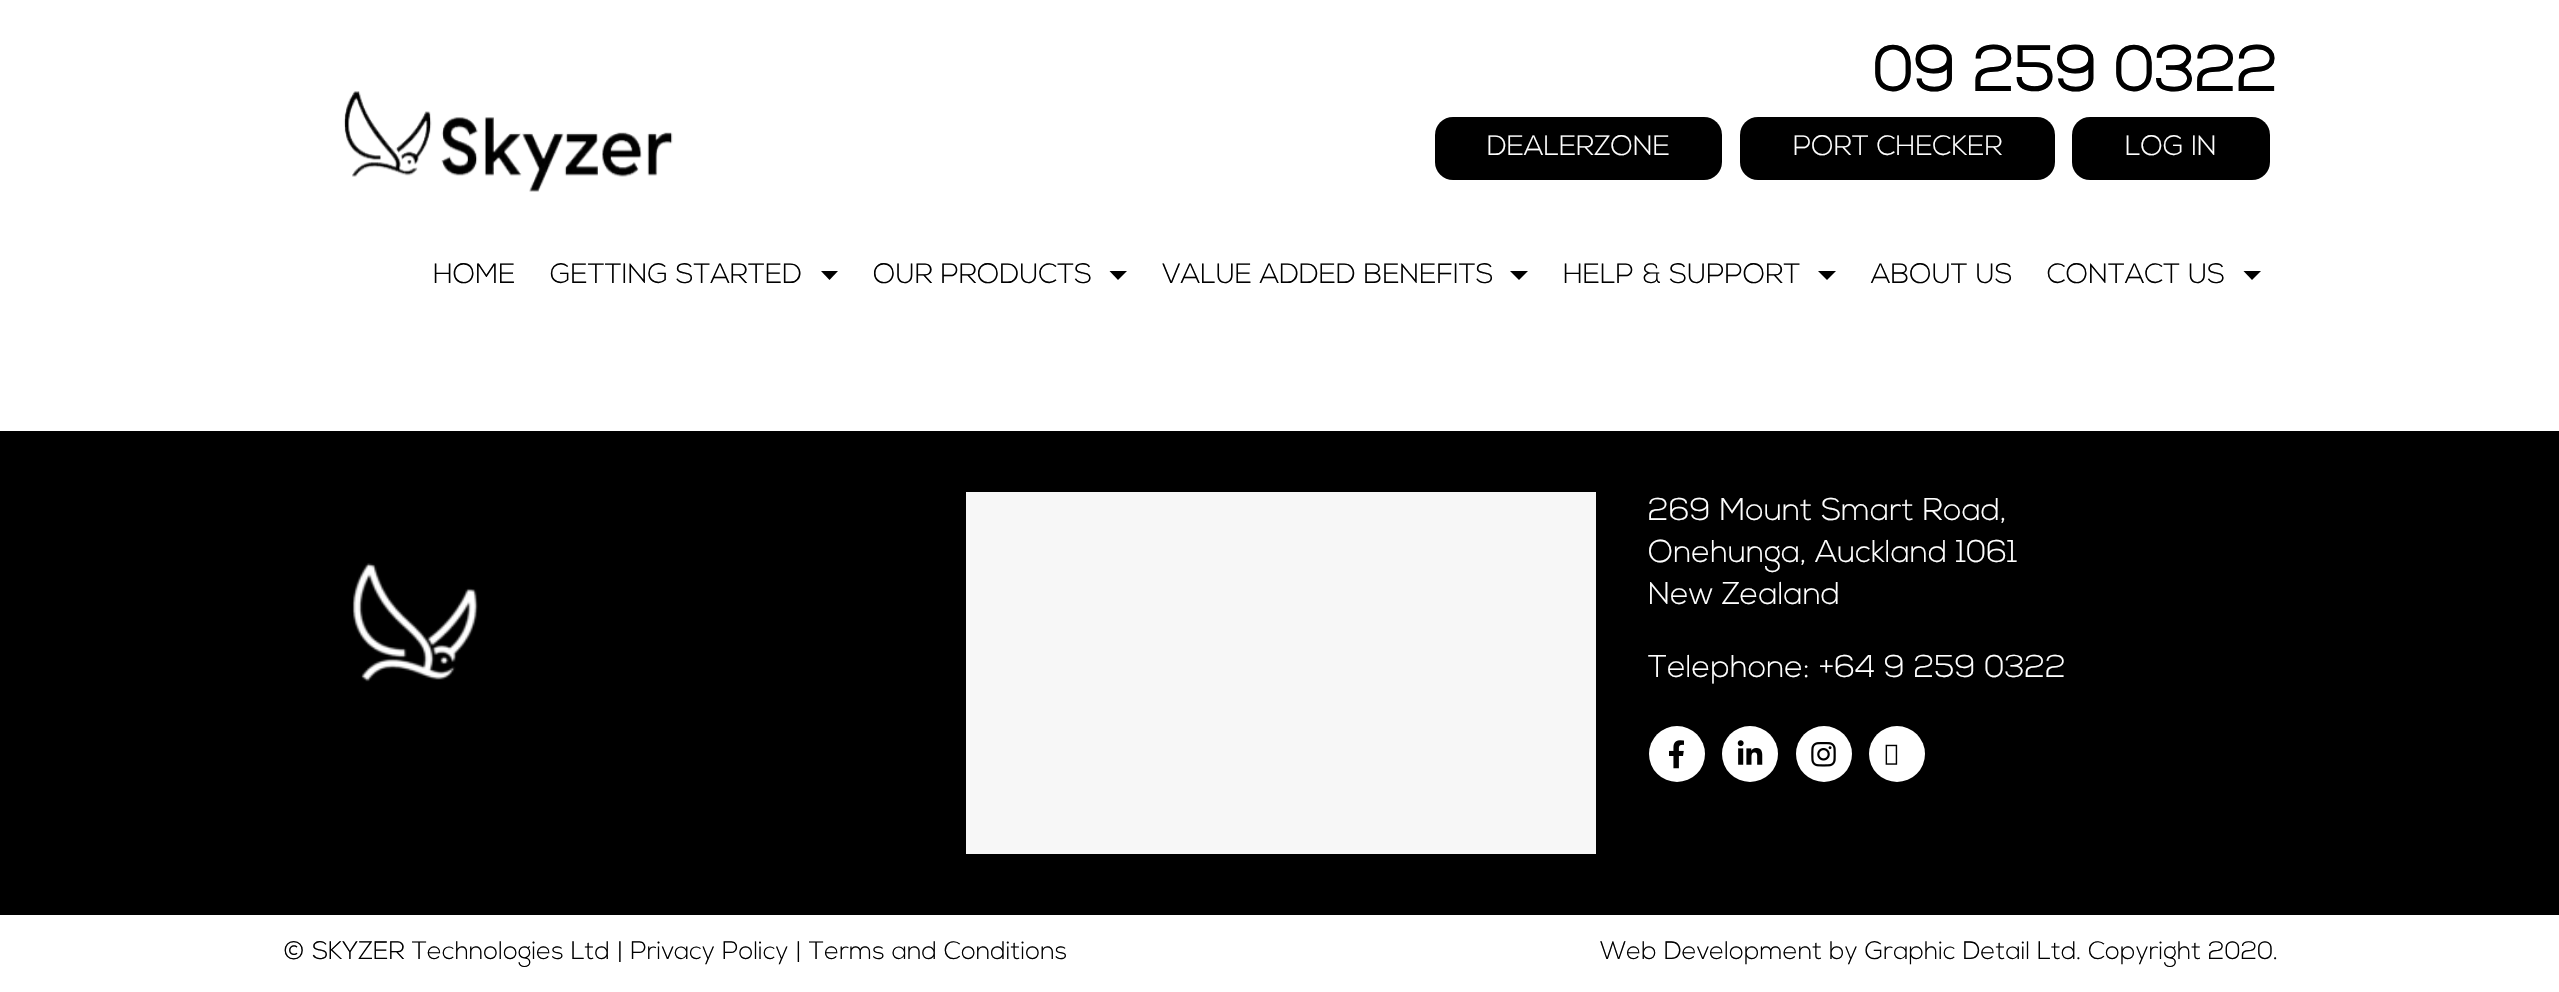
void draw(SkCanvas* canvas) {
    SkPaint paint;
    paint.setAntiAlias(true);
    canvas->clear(0xFFFFFFFF);
    canvas->drawImageRect(SkImages::DeferredFromEncodedData(SkData::MakeFromFileName("img1.png")), SkRect::MakeXYWH(343, 91, 330, 101), SkSamplingOptions());
    SkFont font1(fontMgr->matchFamilyStyle("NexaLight", SkFontStyle::Bold()), 63);
    font1.setSubpixel(true);
    paint.setColor(0xFF000000);
    canvas->drawString("09 259 0322", 1873, 91, font1, paint);
    canvas->drawRoundRect(SkRect::MakeXYWH(1435, 117, 287, 63), 18, 18, paint);
    SkFont font2(fontMgr->matchFamilyStyle("NexaLight", SkFontStyle(300, SkFontStyle::kNormal_Width, SkFontStyle::kUpright_Slant)), 28);
    font2.setSubpixel(true);
    paint.setColor(0xFFFFFFFF);
    canvas->drawString("DEALERZONE", 1487, 155, font2, paint);
    paint.setColor(0xFF000000);
    canvas->drawRoundRect(SkRect::MakeXYWH(1740, 117, 315, 63), 18, 18, paint);
    paint.setColor(0xFFFFFFFF);
    canvas->drawString("PORT CHECKER", 1793, 155, font2, paint);
    paint.setColor(0xFF000000);
    canvas->drawRoundRect(SkRect::MakeXYWH(2072, 117, 198, 63), 18, 18, paint);
    paint.setColor(0xFFFFFFFF);
    canvas->drawString("LOG IN", 2125, 155, font2, paint);
    paint.setColor(0xFF000000);
    canvas->drawString("HOME", 433, 283, font2, paint);
    canvas->drawString("GETTING STARTED", 550, 283, font2, paint);
    canvas->drawPath(SkPathBuilder().moveTo(821, 271).lineTo(838, 271).lineTo(829.5f, 280).close().detach(), paint);
    canvas->drawString("OUR PRODUCTS", 873, 283, font2, paint);
    canvas->drawPath(SkPathBuilder().moveTo(1109.5f, 271).lineTo(1127, 271).lineTo(1118, 280).close().detach(), paint);
    canvas->drawString("VALUE ADDED BENEFITS", 1162, 283, font2, paint);
    canvas->drawPath(SkPathBuilder().moveTo(1510, 271).lineTo(1528, 271).lineTo(1519, 280).close().detach(), paint);
    canvas->drawString("HELP & SUPPORT", 1563, 283, font2, paint);
    canvas->drawPath(SkPathBuilder().moveTo(1818, 271).lineTo(1836, 271).lineTo(1827, 280).close().detach(), paint);
    canvas->drawString("ABOUT US", 1871, 283, font2, paint);
    canvas->drawString("CONTACT US", 2047, 283, font2, paint);
    canvas->drawPath(SkPathBuilder().moveTo(2243.5f, 271).lineTo(2261, 271).lineTo(2252, 280).close().detach(), paint);
    canvas->drawRect(SkRect::MakeXYWH(0, 431, 2559, 484), paint);
    canvas->drawImageRect(SkImages::DeferredFromEncodedData(SkData::MakeFromFileName("img2.png")), SkRect::MakeXYWH(352, 563, 126, 119), SkSamplingOptions());
    paint.setColor(0xFFF7F7F7);
    canvas->drawRect(SkRect::MakeXYWH(966, 492, 630, 362), paint);
    SkFont font3(fontMgr->matchFamilyStyle("NexaLight", SkFontStyle(300, SkFontStyle::kNormal_Width, SkFontStyle::kUpright_Slant)), 31.5f);
    font3.setSubpixel(true);
    paint.setColor(0xFFFFFFFF);
    canvas->drawString("269 Mount Smart Road,", 1648, 520, font3, paint);
    canvas->drawString("Onehunga, Auckland 1061", 1648, 562, font3, paint);
    canvas->drawString("New Zealand", 1648, 604, font3, paint);
    canvas->drawString("Telephone: +64 9 259 0322", 1648, 677, font3, paint);
    canvas->drawCircle(1677, 754, 28, paint);
    canvas->drawImageRect(SkImages::DeferredFromEncodedData(SkData::MakeFromFileName("img3.png")), SkRect::MakeXYWH(1669, 740, 15, 29), SkSamplingOptions());
    canvas->drawCircle(1750, 754, 28, paint);
    canvas->drawImageRect(SkImages::DeferredFromEncodedData(SkData::MakeFromFileName("img4.png")), SkRect::MakeXYWH(1737, 740, 26, 25), SkSamplingOptions());
    canvas->drawCircle(1824, 754, 28, paint);
    canvas->drawImageRect(SkImages::DeferredFromEncodedData(SkData::MakeFromFileName("img5.png")), SkRect::MakeXYWH(1811, 742, 25, 25), SkSamplingOptions());
    canvas->drawCircle(1897, 754, 28, paint);
    canvas->drawImageRect(SkImages::DeferredFromEncodedData(SkData::MakeFromFileName("img6.png")), SkRect::MakeXYWH(1885, 744, 13, 21), SkSamplingOptions());
    SkFont font4(fontMgr->matchFamilyStyle("NexaLight", SkFontStyle(300, SkFontStyle::kNormal_Width, SkFontStyle::kUpright_Slant)), 25.2f);
    font4.setSubpixel(true);
    paint.setColor(0xFF000000);
    canvas->drawString("© SKYZER Technologies Ltd | Privacy Policy | Terms and Conditions", 283, 959, font4, paint);
    canvas->drawString("Web Development by Graphic Detail Ltd. Copyright 2020.", 1600, 959, font4, paint);
}
